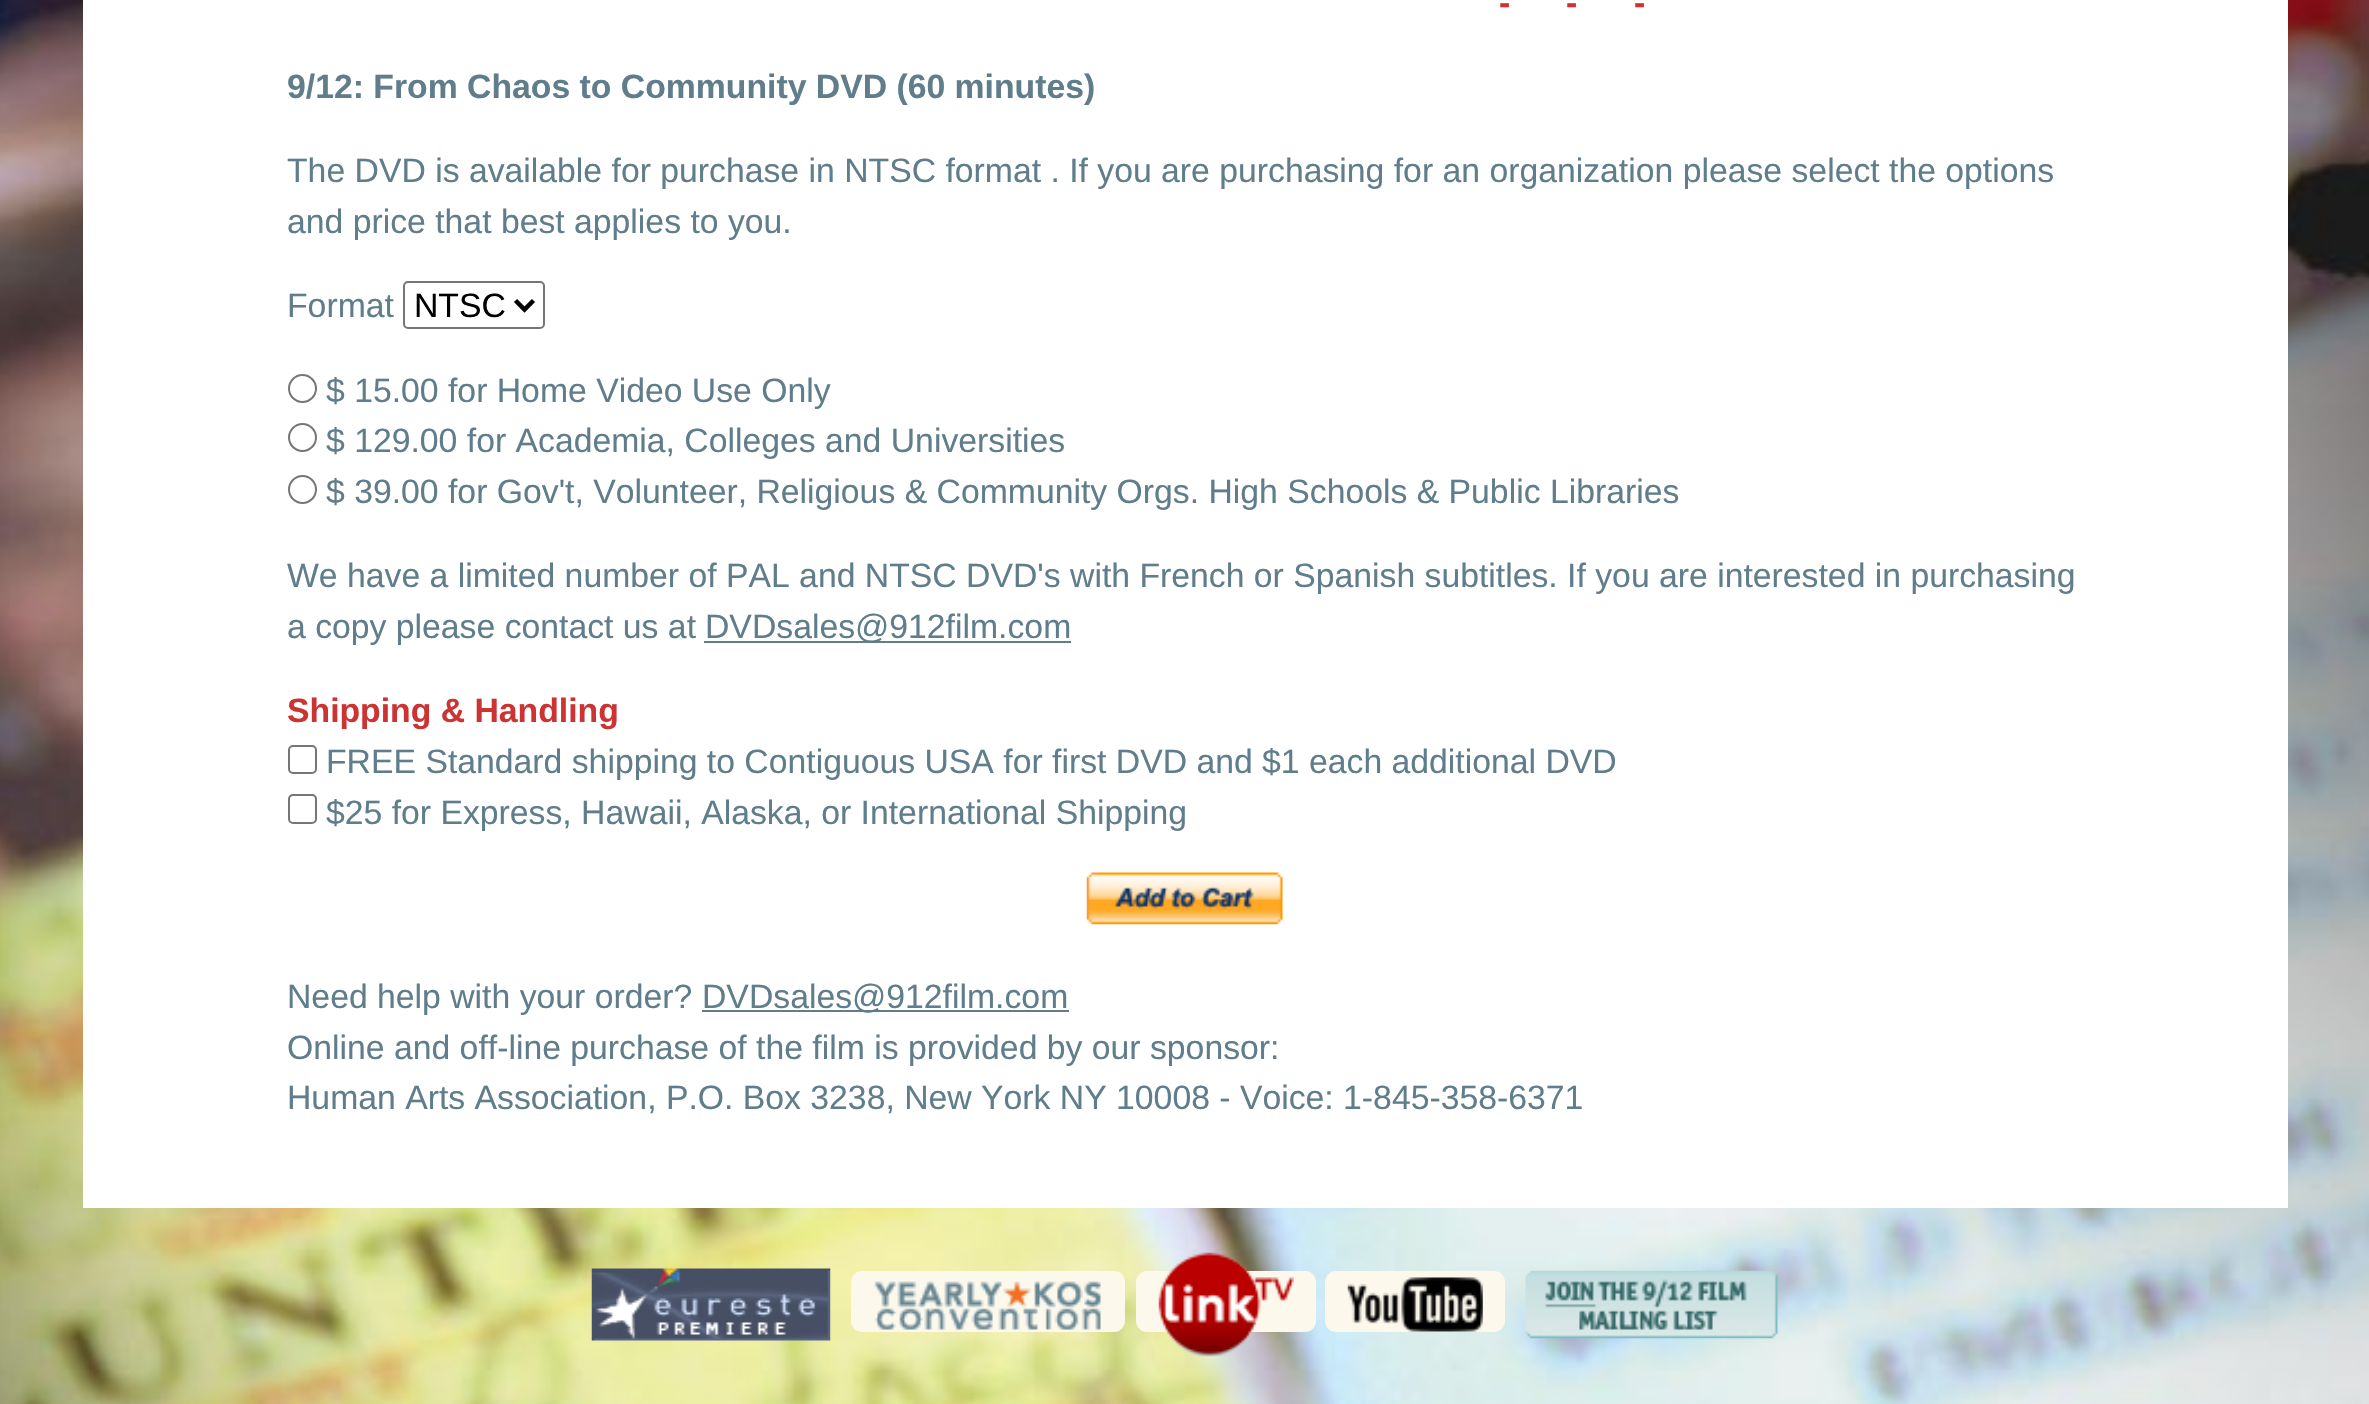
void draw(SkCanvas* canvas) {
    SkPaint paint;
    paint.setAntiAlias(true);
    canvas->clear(0xFFFFFFFF);
    canvas->drawImageRect(SkImages::DeferredFromEncodedData(SkData::MakeFromFileName("img1.png")), SkRect::MakeXYWH(0, 0, 2369, 1404), SkSamplingOptions());
    paint.setColor(0xFFFFFFFF);
    canvas->drawRect(SkRect::MakeXYWH(83, 0, 2205, 1208), paint);
    SkFont font1(fontMgr->matchFamilyStyle("Liberation Sans", SkFontStyle::Bold()), 33.75f);
    font1.setSubpixel(true);
    paint.setColor(0xFFCC3333);
    canvas->drawString("-", 1499, 14, font1, paint);
    canvas->drawString("-", 1566, 14, font1, paint);
    canvas->drawString("-", 1634, 14, font1, paint);
    paint.setColor(0xFF607D8B);
    canvas->drawString("9/12: From Chaos to Community DVD (60 minutes)", 287, 98, font1, paint);
    SkFont font2(fontMgr->matchFamilyStyle("Liberation Sans", SkFontStyle::Normal()), 33.75f);
    font2.setSubpixel(true);
    canvas->drawString("The DVD is available for purchase in NTSC format . If you are purchasing for an organization please select the options", 287, 182, font2, paint);
    canvas->drawString("and price that best applies to you.", 287, 233, font2, paint);
    canvas->drawString("Format", 287, 317, font2, paint);
    paint.setStyle(SkPaint::kStroke_Style);
    paint.setStrokeWidth(2);
    paint.setColor(0xFF767676);
    canvas->drawRoundRect(SkRect::MakeXYWH(404, 282, 140, 46), 4, 4, paint);
    paint.setStrokeWidth(4.5f);
    paint.setColor(0xFF000000);
    canvas->drawPath(SkPathBuilder().moveTo(515.5f, 300.5f).lineTo(524.5f, 309.5f).lineTo(533.5f, 300.5f).detach(), paint);
    paint.setStyle(SkPaint::kFill_Style);
    canvas->drawString("NTSC", 414, 317, font2, paint);
    paint.setStyle(SkPaint::kStroke_Style);
    paint.setStrokeWidth(2);
    paint.setColor(0xFF767676);
    canvas->drawCircle(302.5f, 388.5f, 13.5f, paint);
    paint.setStyle(SkPaint::kFill_Style);
    paint.setColor(0xFF607D8B);
    canvas->drawString("$ 15.00 for Home Video Use Only", 326, 402, font2, paint);
    paint.setStyle(SkPaint::kStroke_Style);
    paint.setColor(0xFF767676);
    canvas->drawCircle(302.5f, 437.5f, 13.5f, paint);
    paint.setStyle(SkPaint::kFill_Style);
    paint.setColor(0xFF607D8B);
    canvas->drawString("$ 129.00 for Academia, Colleges and Universities", 326, 452, font2, paint);
    paint.setStyle(SkPaint::kStroke_Style);
    paint.setColor(0xFF767676);
    canvas->drawCircle(302.5f, 489.5f, 13.5f, paint);
    paint.setStyle(SkPaint::kFill_Style);
    paint.setColor(0xFF607D8B);
    canvas->drawString("$ 39.00 for Gov't, Volunteer, Religious & Community Orgs. High Schools & Public Libraries", 326, 503, font2, paint);
    canvas->drawString("We have a limited number of PAL and NTSC DVD's with French or Spanish subtitles. If you are interested in purchasing", 287, 587, font2, paint);
    canvas->drawString("a copy please contact us at", 287, 638, font2, paint);
    canvas->drawRect(SkRect::MakeXYWH(704, 641, 367, 2), paint);
    canvas->drawString("DVDsales@912film.com", 705, 638, font2, paint);
    paint.setColor(0xFFCC3333);
    canvas->drawString("Shipping & Handling", 287, 722, font1, paint);
    paint.setStyle(SkPaint::kStroke_Style);
    paint.setColor(0xFF767676);
    canvas->drawRoundRect(SkRect::MakeXYWH(289, 746, 27, 27), 4, 4, paint);
    paint.setStyle(SkPaint::kFill_Style);
    paint.setColor(0xFF607D8B);
    canvas->drawString("FREE Standard shipping to Contiguous USA for first DVD and $1 each additional DVD", 326, 773, font2, paint);
    paint.setStyle(SkPaint::kStroke_Style);
    paint.setColor(0xFF767676);
    canvas->drawRoundRect(SkRect::MakeXYWH(289, 795, 27, 28), 4, 4, paint);
    paint.setStyle(SkPaint::kFill_Style);
    paint.setColor(0xFF607D8B);
    canvas->drawString("$25 for Express, Hawaii, Alaska, or International Shipping", 326, 824, font2, paint);
    canvas->drawImageRect(SkImages::DeferredFromEncodedData(SkData::MakeFromFileName("img2.png")), SkRect::MakeXYWH(1086, 872, 197, 53), SkSamplingOptions());
    canvas->drawString("Need help with your order?", 287, 1008, font2, paint);
    canvas->drawRect(SkRect::MakeXYWH(702, 1010, 367, 2), paint);
    canvas->drawString("DVDsales@912film.com", 702, 1008, font2, paint);
    canvas->drawString("Online and off-line purchase of the film is provided by our sponsor:", 287, 1059, font2, paint);
    canvas->drawString("Human Arts Association, P.O. Box 3238, New York NY 10008 - Voice: 1-845-358-6371", 287, 1109, font2, paint);
    canvas->drawImageRect(SkImages::DeferredFromEncodedData(SkData::MakeFromFileName("img3.png")), SkRect::MakeXYWH(591, 1268, 240, 73), SkSamplingOptions());
    paint.setColor(0xFFFCF8EC);
    canvas->drawRoundRect(SkRect::MakeXYWH(851, 1271, 274, 61), 11, 11, paint);
    canvas->drawRoundRect(SkRect::MakeXYWH(1136, 1271, 180, 61), 11, 11, paint);
    canvas->drawImageRect(SkImages::DeferredFromEncodedData(SkData::MakeFromFileName("img4.png")), SkRect::MakeXYWH(1158, 1252, 136, 105), SkSamplingOptions());
    canvas->drawImageRect(SkImages::DeferredFromEncodedData(SkData::MakeFromFileName("img5.png")), SkRect::MakeXYWH(1525, 1270, 253, 69), SkSamplingOptions());
    canvas->drawRoundRect(SkRect::MakeXYWH(1325, 1271, 180, 61), 11, 11, paint);
    canvas->drawImageRect(SkImages::DeferredFromEncodedData(SkData::MakeFromFileName("img6.png")), SkRect::MakeXYWH(874, 1281, 227, 49), SkSamplingOptions());
    canvas->drawImageRect(SkImages::DeferredFromEncodedData(SkData::MakeFromFileName("img7.png")), SkRect::MakeXYWH(1347, 1277, 136, 55), SkSamplingOptions());
}
